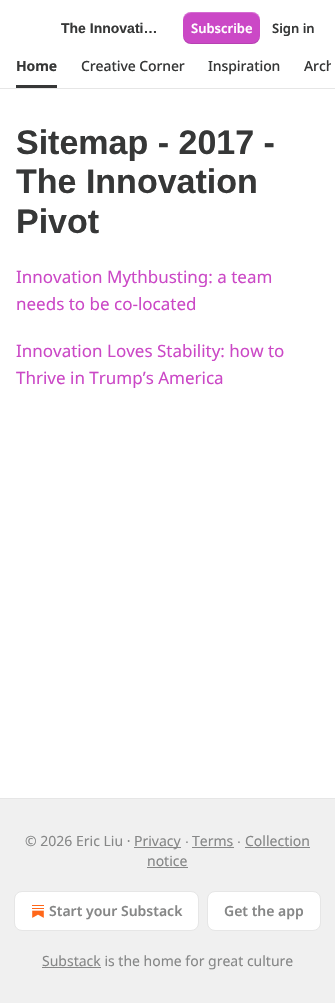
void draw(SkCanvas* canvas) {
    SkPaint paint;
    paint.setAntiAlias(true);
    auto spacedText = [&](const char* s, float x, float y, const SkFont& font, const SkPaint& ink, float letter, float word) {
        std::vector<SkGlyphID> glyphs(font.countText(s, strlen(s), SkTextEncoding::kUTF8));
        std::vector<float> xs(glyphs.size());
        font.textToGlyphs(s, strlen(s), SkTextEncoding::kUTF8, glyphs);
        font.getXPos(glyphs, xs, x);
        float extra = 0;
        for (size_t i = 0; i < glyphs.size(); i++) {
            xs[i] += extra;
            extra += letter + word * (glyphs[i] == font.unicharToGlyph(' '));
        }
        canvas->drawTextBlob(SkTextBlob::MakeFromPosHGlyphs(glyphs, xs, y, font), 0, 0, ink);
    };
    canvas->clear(0xFFFFFFFF);
    SkFont font1(fontMgr->matchFamilyStyle("Liberation Sans", SkFontStyle::Bold()), 14);
    font1.setSubpixel(true);
    paint.setColor(0xFF363737);
    canvas->drawString("The Innovati…", 61, 33, font1, paint);
    paint.setColor(0xFFCB48C6);
    canvas->drawRoundRect(SkRect::MakeXYWH(183, 12, 77, 32), 8, 8, paint);
    paint.setColor(0x1A000000);
    canvas->drawPath(SkPathBuilder().moveTo(183, 35).cubicTo(183, 46, 193, 44, 201, 44).lineTo(242, 44).cubicTo(250, 44, 260, 46, 260, 35).cubicTo(260, 39, 256, 43, 252, 43).lineTo(191, 43).cubicTo(187, 43, 183, 39, 183, 35).close().detach(), paint);
    paint.setColor(0x33FFFFFF);
    canvas->drawPath(SkPathBuilder().moveTo(191, 13).lineTo(252, 13).cubicTo(256, 13, 260, 17, 260, 21).cubicTo(260, 10, 250, 12, 242, 12).lineTo(201, 12).cubicTo(193, 12, 183, 10, 183, 21).cubicTo(183, 17, 187, 13, 191, 13).close().detach(), paint);
    SkFont font2(fontMgr->matchFamilyStyle("Noto Sans", SkFontStyle(600, SkFontStyle::kNormal_Width, SkFontStyle::kUpright_Slant)), 13);
    font2.setSubpixel(true);
    paint.setColor(0xFFFFFFFF);
    canvas->drawString("Subscribe", 191, 33, font2, paint);
    paint.setColor(0xFF363737);
    canvas->drawString("Sign in", 272, 33, font2, paint);
    paint.setColor(0xFFE6E6E6);
    canvas->drawRect(SkRect::MakeXYWH(0, 88, 335, 1), paint);
    paint.setColor(0xFF363737);
    canvas->drawRect(SkRect::MakeXYWH(16, 85, 41, 3), paint);
    SkFont font3(fontMgr->matchFamilyStyle("Noto Sans", SkFontStyle::Bold()), 14);
    font3.setSubpixel(true);
    spacedText("Home", 16, 71, font3, paint, -0.1f, 0);
    paint.setColor(0xFFFFFFFF);
    canvas->drawRect(SkRect::MakeXYWH(193, 44, 57, 1), paint);
    SkFont font4(fontMgr->matchFamilyStyle("Noto Sans", SkFontStyle(500, SkFontStyle::kNormal_Width, SkFontStyle::kUpright_Slant)), 14);
    font4.setSubpixel(true);
    paint.setColor(0xFF363737);
    spacedText("Creative Corner", 81, 71, font4, paint, -0.1f, 0);
    spacedText("Inspiration", 208, 71, font4, paint, -0.1f, 0);
    canvas->save();
    canvas->clipRect(SkRect::MakeXYWH(4, 44, 327, 44));
    spacedText("Arch", 304, 71, font4, paint, -0.1f, 0);
    canvas->restore();
    SkFont font5(fontMgr->matchFamilyStyle("Liberation Sans", SkFontStyle::Bold()), 34);
    font5.setSubpixel(true);
    canvas->drawString("Sitemap - 2017 -", 16, 154, font5, paint);
    canvas->drawString("The Innovation", 16, 193, font5, paint);
    canvas->drawString("Pivot", 16, 233, font5, paint);
    SkFont font6(fontMgr->matchFamilyStyle("Noto Sans", SkFontStyle::Normal()), 17);
    font6.setSubpixel(true);
    paint.setColor(0xFFCB48C6);
    canvas->drawString("Innovation Mythbusting: a team", 16, 283, font6, paint);
    canvas->drawString("needs to be co-located", 16, 310, font6, paint);
    canvas->drawString("Innovation Loves Stability: how to", 16, 357, font6, paint);
    canvas->drawString("Thrive in Trump’s America", 16, 384, font6, paint);
    paint.setColor(0xFFF0F0F0);
    canvas->drawRect(SkRect::MakeXYWH(0, 799, 335, 204), paint);
    paint.setColor(0xFFE6E6E6);
    canvas->drawRect(SkRect::MakeXYWH(0, 798, 335, 1), paint);
    SkFont font7(fontMgr->matchFamilyStyle("Noto Sans", SkFontStyle::Normal()), 14);
    font7.setSubpixel(true);
    paint.setColor(0xFF868787);
    canvas->drawString("© 2026 Eric Liu ·", 25, 846, font7, paint);
    canvas->drawRect(SkRect::MakeXYWH(134, 847, 47, 1), paint);
    canvas->drawString("Privacy", 134, 846, font7, paint);
    SkFont font8(fontMgr->matchFamilyStyle("Liberation Sans", SkFontStyle::Normal()), 14);
    font8.setSubpixel(true);
    canvas->drawString("∙", 185, 846, font8, paint);
    canvas->drawString("Terms", 192, 846, font7, paint);
    canvas->drawRect(SkRect::MakeXYWH(192, 847, 42, 1), paint);
    canvas->drawString("∙", 237, 846, font8, paint);
    canvas->drawString("Collection", 245, 846, font7, paint);
    canvas->drawRect(SkRect::MakeXYWH(245, 847, 65, 1), paint);
    canvas->drawString("notice", 147, 866, font7, paint);
    canvas->drawRect(SkRect::MakeXYWH(147, 867, 41, 1), paint);
    paint.setColor(0xFFFFFFFF);
    canvas->drawRoundRect(SkRect::MakeXYWH(14.5f, 891.5f, 184, 39), 7.5f, 7.5f, paint);
    paint.setStyle(SkPaint::kStroke_Style);
    paint.setStrokeWidth(1);
    paint.setColor(0xFFE6E6E6);
    canvas->drawRoundRect(SkRect::MakeXYWH(14.5f, 891.5f, 184, 39), 7.5f, 7.5f, paint);
    canvas->drawImageRect(SkImages::DeferredFromEncodedData(SkData::MakeFromFileName("img1.png")), SkRect::MakeXYWH(32, 905, 12, 13), SkSamplingOptions());
    SkFont font9(fontMgr->matchFamilyStyle("Noto Sans", SkFontStyle(600, SkFontStyle::kNormal_Width, SkFontStyle::kUpright_Slant)), 14);
    font9.setSubpixel(true);
    paint.setStyle(SkPaint::kFill_Style);
    paint.setColor(0xFF868787);
    canvas->drawString("Start your Substack", 49, 916, font9, paint);
    paint.setColor(0xFFFFFFFF);
    canvas->drawRoundRect(SkRect::MakeXYWH(207.5f, 891.5f, 113, 39), 7.5f, 7.5f, paint);
    paint.setStyle(SkPaint::kStroke_Style);
    paint.setColor(0xFFE6E6E6);
    canvas->drawRoundRect(SkRect::MakeXYWH(207.5f, 891.5f, 113, 39), 7.5f, 7.5f, paint);
    paint.setStyle(SkPaint::kFill_Style);
    paint.setColor(0xFF868787);
    canvas->drawString("Get the app", 224, 916, font9, paint);
    canvas->drawRect(SkRect::MakeXYWH(42, 967, 59, 1), paint);
    canvas->drawString("Substack is the home for great culture", 42, 966, font7, paint);
}
